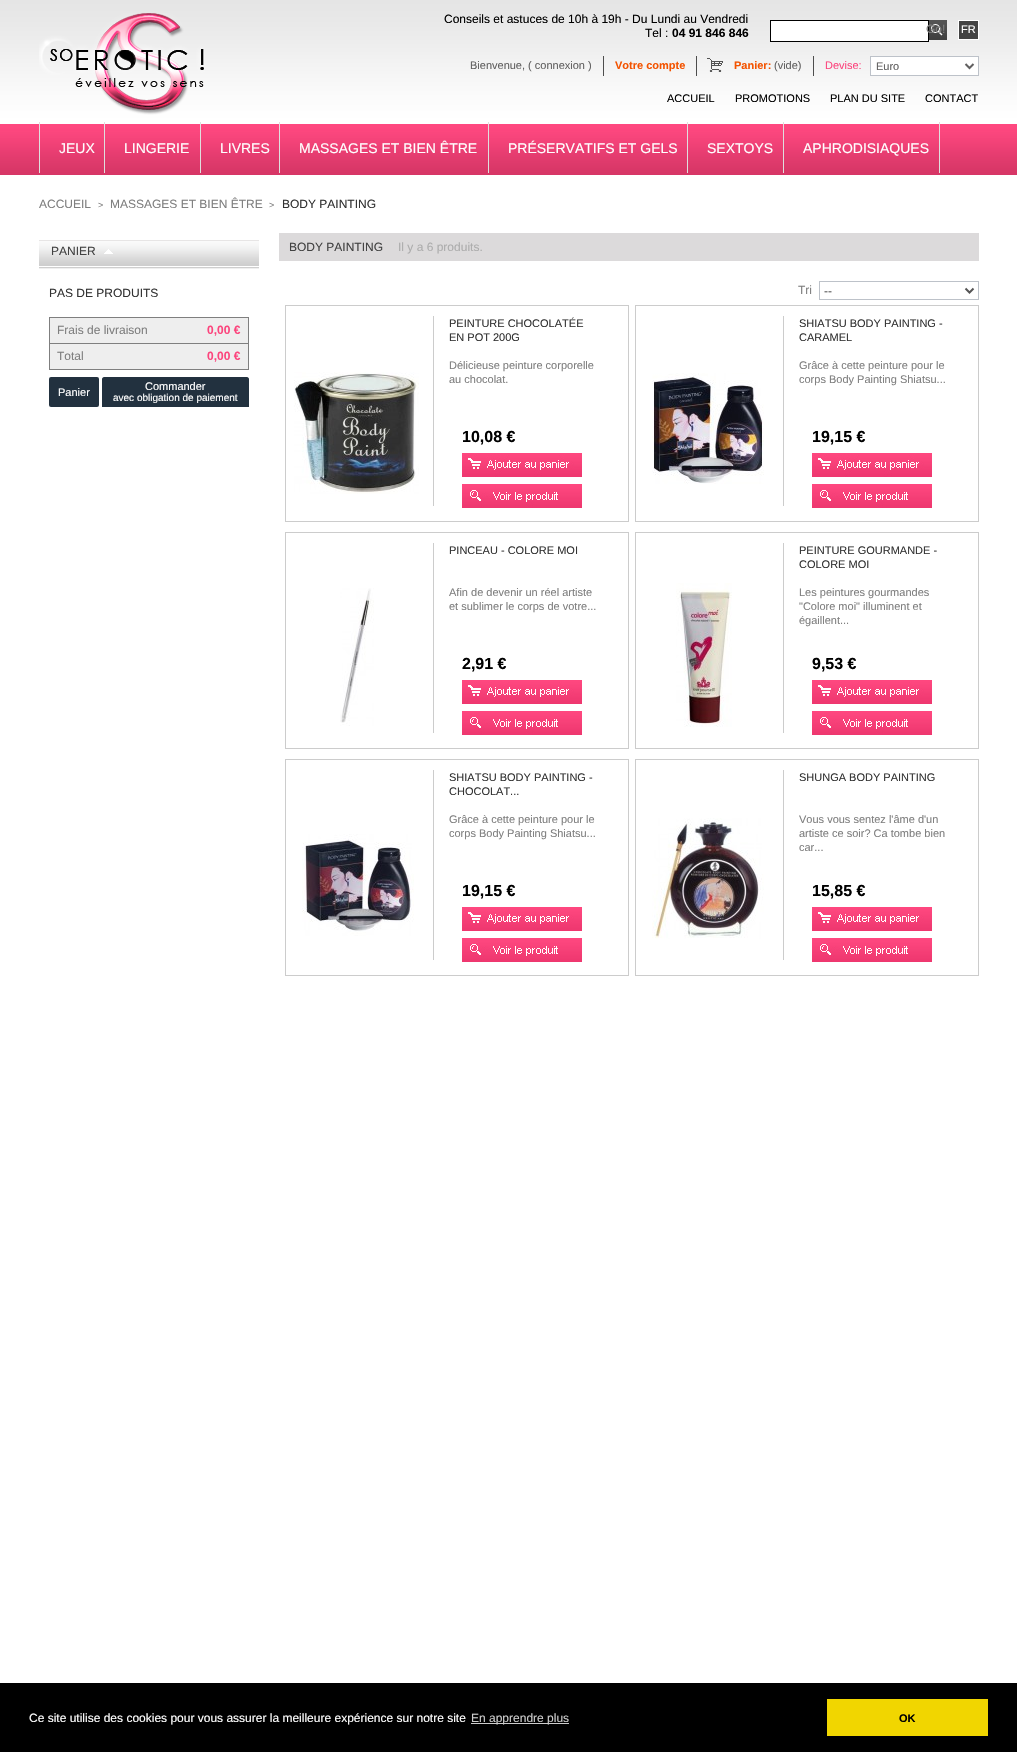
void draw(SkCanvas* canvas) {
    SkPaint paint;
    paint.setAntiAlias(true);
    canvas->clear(0xFFFFFFFF);
    canvas->drawImageRect(SkImages::DeferredFromEncodedData(SkData::MakeFromFileName("img1.png")), SkRect::MakeXYWH(0, 123, 1017, 52), SkSamplingOptions());
    canvas->drawImageRect(SkImages::DeferredFromEncodedData(SkData::MakeFromFileName("img2.png")), SkRect::MakeXYWH(0, 0, 1017, 123), SkSamplingOptions());
    canvas->drawImageRect(SkImages::DeferredFromEncodedData(SkData::MakeFromFileName("img3.png")), SkRect::MakeXYWH(39, 13, 166, 102), SkSamplingOptions());
    SkFont font1(fontMgr->matchFamilyStyle("Liberation Sans", SkFontStyle::Normal()), 12);
    font1.setSubpixel(true);
    paint.setColor(0xFF000000);
    canvas->drawString("Conseils et astuces de 10h à 19h - Du Lundi au Vendredi", 444, 23, font1, paint);
    canvas->drawString("Tel :", 645, 37, font1, paint);
    SkFont font2(fontMgr->matchFamilyStyle("Liberation Sans", SkFontStyle::Bold()), 12);
    font2.setSubpixel(true);
    canvas->drawString("04 91 846 846", 672, 37, font2, paint);
    canvas->drawImageRect(SkImages::DeferredFromEncodedData(SkData::MakeFromFileName("img4.png")), SkRect::MakeXYWH(929, 20, 18, 20), SkSamplingOptions());
    paint.setColor(0xFFFFFFFF);
    canvas->drawRect(SkRect::MakeXYWH(770.5f, 20.5f, 158, 21), paint);
    paint.setStyle(SkPaint::kStroke_Style);
    paint.setStrokeWidth(1);
    paint.setColor(0xFF000000);
    canvas->drawRect(SkRect::MakeXYWH(770.5f, 20.5f, 158, 21), paint);
    paint.setStyle(SkPaint::kFill_Style);
    paint.setColor(0xFF7F7F7F);
    canvas->drawString("Go!", 926, 33, font1, paint);
    paint.setColor(0xFF434343);
    canvas->drawRect(SkRect::MakeXYWH(958.5f, 20.5f, 20, 19), paint);
    paint.setStyle(SkPaint::kStroke_Style);
    paint.setColor(0xFFFFFFFF);
    canvas->drawRect(SkRect::MakeXYWH(958.5f, 20.5f, 20, 19), paint);
    SkFont font3(fontMgr->matchFamilyStyle("Liberation Sans", SkFontStyle::Normal()), 11);
    font3.setSubpixel(true);
    paint.setStyle(SkPaint::kFill_Style);
    canvas->drawString("FR", 961, 33, font3, paint);
    paint.setColor(0xFF4D4D4D);
    canvas->drawRect(SkRect::MakeXYWH(603, 56, 1, 20), paint);
    paint.setColor(0xFF616060);
    canvas->drawString("Bienvenue, ( connexion )", 470, 69, font3, paint);
    paint.setColor(0xFF4D4D4D);
    canvas->drawRect(SkRect::MakeXYWH(696, 56, 1, 20), paint);
    SkFont font4(fontMgr->matchFamilyStyle("Liberation Sans", SkFontStyle::Bold()), 11);
    font4.setSubpixel(true);
    paint.setColor(0xFFF35300);
    canvas->drawString("Votre compte", 615, 69, font4, paint);
    canvas->drawImageRect(SkImages::DeferredFromEncodedData(SkData::MakeFromFileName("img5.png")), SkRect::MakeXYWH(707, 58, 16, 14), SkSamplingOptions());
    paint.setColor(0xFF4D4D4D);
    canvas->drawRect(SkRect::MakeXYWH(813, 56, 1, 20), paint);
    paint.setColor(0xFFF35300);
    canvas->drawString("Panier:", 734, 69, font4, paint);
    paint.setColor(0xFF616060);
    canvas->drawString("(vide)", 774, 69, font3, paint);
    paint.setColor(0xFFFC457D);
    canvas->drawString("Devise:", 825, 69, font3, paint);
    paint.setColor(0xFFFFFFFF);
    canvas->drawRect(SkRect::MakeXYWH(870.5f, 56.5f, 108, 19), paint);
    paint.setStyle(SkPaint::kStroke_Style);
    paint.setColor(0xFFBDC2C9);
    canvas->drawRect(SkRect::MakeXYWH(870.5f, 56.5f, 108, 19), paint);
    paint.setStrokeWidth(2);
    paint.setColor(0xFF616060);
    canvas->drawPath(SkPathBuilder().moveTo(965.5f, 64).lineTo(969.5f, 68).lineTo(973.5f, 64).detach(), paint);
    paint.setStyle(SkPaint::kFill_Style);
    canvas->drawString("Euro", 876, 70, font3, paint);
    paint.setColor(0xFF000000);
    canvas->drawString("ACCUEIL", 667, 102, font3, paint);
    canvas->drawString("PROMOTIONS", 735, 102, font3, paint);
    canvas->drawString("PLAN DU SITE", 830, 102, font3, paint);
    canvas->drawString("CONTACT", 925, 102, font3, paint);
    paint.setColor(0xFFDFDFDE);
    canvas->drawRect(SkRect::MakeXYWH(39, 122, 1, 51), paint);
    canvas->drawRect(SkRect::MakeXYWH(104, 122, 1, 51), paint);
    SkFont font5(fontMgr->matchFamilyStyle("Liberation Sans", SkFontStyle::Normal()), 14);
    font5.setSubpixel(true);
    paint.setColor(0xFFFFFFFF);
    canvas->drawString("JEUX", 59, 153, font5, paint);
    paint.setColor(0xFFDFDFDE);
    canvas->drawRect(SkRect::MakeXYWH(200, 122, 1, 51), paint);
    paint.setColor(0xFFFFFFFF);
    canvas->drawString("LINGERIE", 124, 153, font5, paint);
    paint.setColor(0xFFDFDFDE);
    canvas->drawRect(SkRect::MakeXYWH(279, 122, 1, 51), paint);
    paint.setColor(0xFFFFFFFF);
    canvas->drawString("LIVRES", 220, 153, font5, paint);
    paint.setColor(0xFFDFDFDE);
    canvas->drawRect(SkRect::MakeXYWH(488, 122, 1, 51), paint);
    paint.setColor(0xFFFFFFFF);
    canvas->drawString("MASSAGES ET BIEN ÊTRE", 299, 153, font5, paint);
    paint.setColor(0xFFDFDFDE);
    canvas->drawRect(SkRect::MakeXYWH(687, 122, 1, 51), paint);
    paint.setColor(0xFFFFFFFF);
    canvas->drawString("PRÉSERVATIFS ET GELS", 508, 153, font5, paint);
    paint.setColor(0xFFDFDFDE);
    canvas->drawRect(SkRect::MakeXYWH(783, 122, 1, 51), paint);
    paint.setColor(0xFFFFFFFF);
    canvas->drawString("SEXTOYS", 707, 153, font5, paint);
    paint.setColor(0xFFDFDFDE);
    canvas->drawRect(SkRect::MakeXYWH(939, 122, 1, 51), paint);
    paint.setColor(0xFFFFFFFF);
    canvas->drawString("APHRODISIAQUES", 803, 153, font5, paint);
    paint.setColor(0xFF7F7F7F);
    canvas->drawString("ACCUEIL", 39, 208, font1, paint);
    SkFont font6(fontMgr->matchFamilyStyle("Liberation Sans", SkFontStyle::Normal()), 9);
    font6.setSubpixel(true);
    canvas->drawString(">", 98, 208, font6, paint);
    canvas->drawString("MASSAGES ET BIEN ÊTRE", 110, 208, font1, paint);
    canvas->drawString(">", 269, 208, font6, paint);
    paint.setColor(0xFF333333);
    canvas->drawString("BODY PAINTING", 282, 208, font1, paint);
    paint.setColor(0xFFDCDADB);
    canvas->drawRect(SkRect::MakeXYWH(279, 233, 700, 28), paint);
    paint.setColor(0xFF424242);
    canvas->drawString("BODY PAINTING", 289, 251, font1, paint);
    paint.setColor(0xFFADADAD);
    canvas->drawString("Il y a 6 produits.", 398, 251, font1, paint);
    paint.setColor(0xFF7F7F7F);
    canvas->drawString("Tri", 798, 294, font1, paint);
    paint.setStyle(SkPaint::kStroke_Style);
    paint.setStrokeWidth(1);
    paint.setColor(0xFFBDC2C9);
    canvas->drawRect(SkRect::MakeXYWH(819.5f, 281.5f, 159, 18), paint);
    paint.setStrokeWidth(2);
    paint.setColor(0xFF555555);
    canvas->drawPath(SkPathBuilder().moveTo(965.5f, 288.5f).lineTo(969.5f, 292.5f).lineTo(973.5f, 288.5f).detach(), paint);
    paint.setStyle(SkPaint::kFill_Style);
    canvas->drawString("--", 824, 295, font1, paint);
    paint.setStyle(SkPaint::kStroke_Style);
    paint.setStrokeWidth(1);
    paint.setColor(0xFFCCCCCC);
    canvas->drawRect(SkRect::MakeXYWH(285.5f, 305.5f, 343, 216), paint);
    paint.setStyle(SkPaint::kFill_Style);
    canvas->drawRect(SkRect::MakeXYWH(433, 316, 1, 190), paint);
    canvas->drawImageRect(SkImages::DeferredFromEncodedData(SkData::MakeFromFileName("img6.png")), SkRect::MakeXYWH(294, 372, 125, 122), SkSamplingOptions());
    paint.setColor(0xFF333333);
    canvas->drawString("PEINTURE CHOCOLATÉE", 449, 327, font3, paint);
    canvas->drawString("EN POT 200G", 449, 341, font3, paint);
    paint.setColor(0xFF7F7F7F);
    canvas->drawString("Délicieuse peinture corporelle", 449, 369, font3, paint);
    canvas->drawString("au chocolat.", 449, 383, font3, paint);
    SkFont font7(fontMgr->matchFamilyStyle("Liberation Sans", SkFontStyle::Bold()), 16);
    font7.setSubpixel(true);
    paint.setColor(0xFF000000);
    canvas->drawString("10,08 €", 462, 442, font7, paint);
    canvas->drawImageRect(SkImages::DeferredFromEncodedData(SkData::MakeFromFileName("img7.png")), SkRect::MakeXYWH(462, 453, 120, 24), SkSamplingOptions());
    canvas->drawImageRect(SkImages::DeferredFromEncodedData(SkData::MakeFromFileName("img8.png")), SkRect::MakeXYWH(462, 484, 120, 24), SkSamplingOptions());
    paint.setStyle(SkPaint::kStroke_Style);
    paint.setColor(0xFFCCCCCC);
    canvas->drawRect(SkRect::MakeXYWH(635.5f, 305.5f, 343, 216), paint);
    paint.setStyle(SkPaint::kFill_Style);
    canvas->drawRect(SkRect::MakeXYWH(783, 316, 1, 190), paint);
    canvas->drawImageRect(SkImages::DeferredFromEncodedData(SkData::MakeFromFileName("img9.png")), SkRect::MakeXYWH(652, 373, 112, 111), SkSamplingOptions());
    paint.setColor(0xFF333333);
    canvas->drawString("SHIATSU BODY PAINTING -", 799, 327, font3, paint);
    canvas->drawString("CARAMEL", 799, 341, font3, paint);
    paint.setColor(0xFF7F7F7F);
    canvas->drawString("Grâce à cette peinture pour le", 799, 369, font3, paint);
    canvas->drawString("corps Body Painting Shiatsu...", 799, 383, font3, paint);
    paint.setColor(0xFF000000);
    canvas->drawString("19,15 €", 812, 442, font7, paint);
    canvas->drawImageRect(SkImages::DeferredFromEncodedData(SkData::MakeFromFileName("img7.png")), SkRect::MakeXYWH(812, 453, 120, 24), SkSamplingOptions());
    canvas->drawImageRect(SkImages::DeferredFromEncodedData(SkData::MakeFromFileName("img8.png")), SkRect::MakeXYWH(812, 484, 120, 24), SkSamplingOptions());
    paint.setStyle(SkPaint::kStroke_Style);
    paint.setColor(0xFFCCCCCC);
    canvas->drawRect(SkRect::MakeXYWH(285.5f, 532.5f, 343, 216), paint);
    paint.setStyle(SkPaint::kFill_Style);
    canvas->drawRect(SkRect::MakeXYWH(433, 543, 1, 190), paint);
    canvas->drawImageRect(SkImages::DeferredFromEncodedData(SkData::MakeFromFileName("img10.png")), SkRect::MakeXYWH(340, 588, 34, 138), SkSamplingOptions());
    paint.setColor(0xFF333333);
    canvas->drawString("PINCEAU - COLORE MOI", 449, 554, font3, paint);
    paint.setColor(0xFF7F7F7F);
    canvas->drawString("Afin de devenir un réel artiste", 449, 596, font3, paint);
    canvas->drawString("et sublimer le corps de votre...", 449, 610, font3, paint);
    paint.setColor(0xFF000000);
    canvas->drawString("2,91 €", 462, 669, font7, paint);
    canvas->drawImageRect(SkImages::DeferredFromEncodedData(SkData::MakeFromFileName("img7.png")), SkRect::MakeXYWH(462, 680, 120, 24), SkSamplingOptions());
    canvas->drawImageRect(SkImages::DeferredFromEncodedData(SkData::MakeFromFileName("img8.png")), SkRect::MakeXYWH(462, 711, 120, 24), SkSamplingOptions());
    paint.setStyle(SkPaint::kStroke_Style);
    paint.setColor(0xFFCCCCCC);
    canvas->drawRect(SkRect::MakeXYWH(635.5f, 532.5f, 343, 216), paint);
    paint.setStyle(SkPaint::kFill_Style);
    canvas->drawRect(SkRect::MakeXYWH(783, 543, 1, 190), paint);
    canvas->drawImageRect(SkImages::DeferredFromEncodedData(SkData::MakeFromFileName("img11.png")), SkRect::MakeXYWH(676, 583, 56, 144), SkSamplingOptions());
    paint.setColor(0xFF333333);
    canvas->drawString("PEINTURE GOURMANDE -", 799, 554, font3, paint);
    canvas->drawString("COLORE MOI", 799, 568, font3, paint);
    paint.setColor(0xFF7F7F7F);
    canvas->drawString("Les peintures gourmandes", 799, 596, font3, paint);
    canvas->drawString("\"Colore moi\" illuminent et", 799, 610, font3, paint);
    canvas->drawString("égaillent...", 799, 624, font3, paint);
    paint.setColor(0xFF000000);
    canvas->drawString("9,53 €", 812, 669, font7, paint);
    canvas->drawImageRect(SkImages::DeferredFromEncodedData(SkData::MakeFromFileName("img7.png")), SkRect::MakeXYWH(812, 680, 120, 24), SkSamplingOptions());
    canvas->drawImageRect(SkImages::DeferredFromEncodedData(SkData::MakeFromFileName("img8.png")), SkRect::MakeXYWH(812, 711, 120, 24), SkSamplingOptions());
    paint.setStyle(SkPaint::kStroke_Style);
    paint.setColor(0xFFCCCCCC);
    canvas->drawRect(SkRect::MakeXYWH(285.5f, 759.5f, 343, 216), paint);
    paint.setStyle(SkPaint::kFill_Style);
    canvas->drawRect(SkRect::MakeXYWH(433, 770, 1, 190), paint);
    canvas->drawImageRect(SkImages::DeferredFromEncodedData(SkData::MakeFromFileName("img12.png")), SkRect::MakeXYWH(302, 834, 112, 102), SkSamplingOptions());
    paint.setColor(0xFF333333);
    canvas->drawString("SHIATSU BODY PAINTING -", 449, 781, font3, paint);
    canvas->drawString("CHOCOLAT...", 449, 795, font3, paint);
    paint.setColor(0xFF7F7F7F);
    canvas->drawString("Grâce à cette peinture pour le", 449, 823, font3, paint);
    canvas->drawString("corps Body Painting Shiatsu...", 449, 837, font3, paint);
    paint.setColor(0xFF000000);
    canvas->drawString("19,15 €", 462, 896, font7, paint);
    canvas->drawImageRect(SkImages::DeferredFromEncodedData(SkData::MakeFromFileName("img7.png")), SkRect::MakeXYWH(462, 907, 120, 24), SkSamplingOptions());
    canvas->drawImageRect(SkImages::DeferredFromEncodedData(SkData::MakeFromFileName("img8.png")), SkRect::MakeXYWH(462, 938, 120, 24), SkSamplingOptions());
    paint.setStyle(SkPaint::kStroke_Style);
    paint.setColor(0xFFCCCCCC);
    canvas->drawRect(SkRect::MakeXYWH(635.5f, 759.5f, 343, 216), paint);
    paint.setStyle(SkPaint::kFill_Style);
    canvas->drawRect(SkRect::MakeXYWH(783, 770, 1, 190), paint);
    canvas->drawImageRect(SkImages::DeferredFromEncodedData(SkData::MakeFromFileName("img13.png")), SkRect::MakeXYWH(652, 818, 112, 121), SkSamplingOptions());
    paint.setColor(0xFF333333);
    canvas->drawString("SHUNGA BODY PAINTING", 799, 781, font3, paint);
    paint.setColor(0xFF7F7F7F);
    canvas->drawString("Vous vous sentez l'âme d'un", 799, 823, font3, paint);
    canvas->drawString("artiste ce soir? Ca tombe bien", 799, 837, font3, paint);
    canvas->drawString("car...", 799, 851, font3, paint);
    paint.setColor(0xFF000000);
    canvas->drawString("15,85 €", 812, 896, font7, paint);
    canvas->drawImageRect(SkImages::DeferredFromEncodedData(SkData::MakeFromFileName("img7.png")), SkRect::MakeXYWH(812, 907, 120, 24), SkSamplingOptions());
    canvas->drawImageRect(SkImages::DeferredFromEncodedData(SkData::MakeFromFileName("img8.png")), SkRect::MakeXYWH(812, 938, 120, 24), SkSamplingOptions());
    canvas->drawImageRect(SkImages::DeferredFromEncodedData(SkData::MakeFromFileName("img14.png")), SkRect::MakeXYWH(39, 240, 220, 29), SkSamplingOptions());
    paint.setColor(0xFF424242);
    canvas->drawString("PANIER", 51, 255, font1, paint);
    canvas->drawImageRect(SkImages::DeferredFromEncodedData(SkData::MakeFromFileName("img15.png")), SkRect::MakeXYWH(104, 249, 9, 5), SkSamplingOptions());
    paint.setColor(0xFF333333);
    canvas->drawString("PAS DE PRODUITS", 49, 297, font1, paint);
    paint.setColor(0xFF7F7F7F);
    canvas->drawRect(SkRect::MakeXYWH(49, 317, 200, 1), paint);
    paint.setColor(0xFFEEEEEE);
    canvas->drawRect(SkRect::MakeXYWH(50, 318, 198, 25), paint);
    paint.setColor(0xFF7F7F7F);
    canvas->drawRect(SkRect::MakeXYWH(248, 318, 1, 52), paint);
    canvas->drawRect(SkRect::MakeXYWH(49, 343, 200, 1), paint);
    canvas->drawRect(SkRect::MakeXYWH(49, 318, 1, 26), paint);
    canvas->drawString("Frais de livraison", 57, 334, font1, paint);
    paint.setColor(0xFFFC457D);
    canvas->drawString("0,00 €", 207, 334, font2, paint);
    paint.setColor(0xFFEEEEEE);
    canvas->drawRect(SkRect::MakeXYWH(50, 344, 198, 25), paint);
    paint.setColor(0xFF7F7F7F);
    canvas->drawRect(SkRect::MakeXYWH(49, 369, 200, 1), paint);
    canvas->drawRect(SkRect::MakeXYWH(49, 344, 1, 26), paint);
    canvas->drawString("Total", 57, 360, font1, paint);
    paint.setColor(0xFFFC457D);
    canvas->drawString("0,00 €", 207, 360, font2, paint);
    paint.setColor(0xFF22313F);
    canvas->drawRoundRect(SkRect::MakeXYWH(49, 377, 50, 30), 2, 2, paint);
    paint.setColor(0xFFFFFFFF);
    canvas->drawString("Panier", 58, 396, font3, paint);
    paint.setColor(0xFF22313F);
    canvas->drawPath(SkPathBuilder().moveTo(104, 377).lineTo(247, 377).cubicTo(248, 377, 249, 378, 249, 379).lineTo(249, 407).lineTo(102, 407).lineTo(102, 379).cubicTo(102, 378, 103, 377, 104, 377).close().detach(), paint);
    paint.setColor(0xFFFFFFFF);
    canvas->drawString("Commander", 145, 390, font3, paint);
    SkFont font8(fontMgr->matchFamilyStyle("Liberation Sans", SkFontStyle::Normal()), 10);
    font8.setSubpixel(true);
    canvas->drawString("avec obligation de paiement", 113, 401, font8, paint);
    paint.setColor(0xFF000000);
    canvas->drawRect(SkRect::MakeXYWH(0, 1683, 1017, 69), paint);
    paint.setColor(0xFFFFFFFF);
    canvas->drawString("Ce site utilise des cookies pour vous assurer la meilleure expérience sur notre site", 29, 1722, font1, paint);
    paint.setColor(0xFFCCCCCC);
    canvas->drawRect(SkRect::MakeXYWH(471, 1723, 98, 1), paint);
    canvas->drawString("En apprendre plus", 471, 1722, font1, paint);
    paint.setColor(0xFFF1D600);
    canvas->drawRect(SkRect::MakeXYWH(827, 1699, 161, 37), paint);
    paint.setColor(0xFF000000);
    canvas->drawString("OK", 899, 1722, font4, paint);
}
